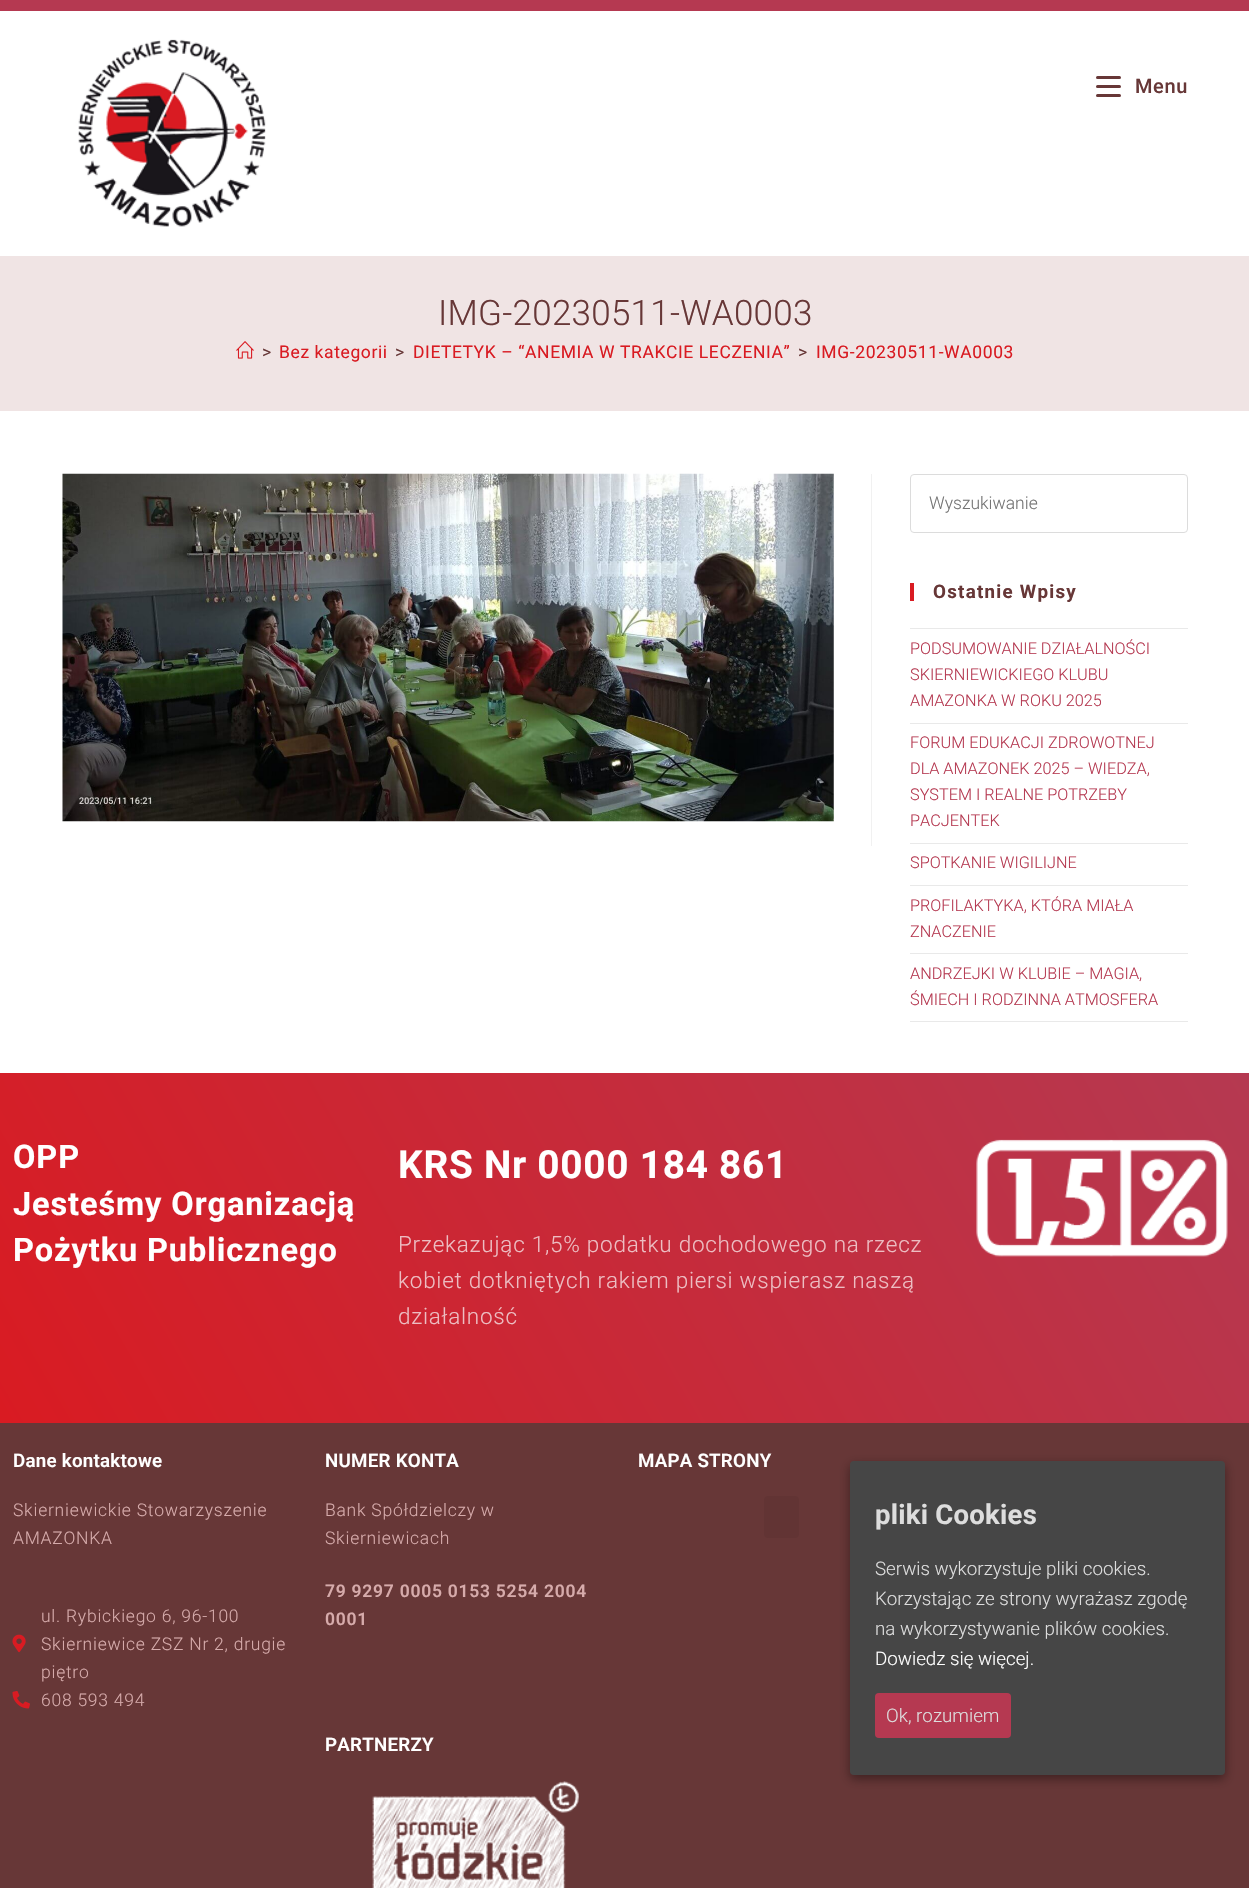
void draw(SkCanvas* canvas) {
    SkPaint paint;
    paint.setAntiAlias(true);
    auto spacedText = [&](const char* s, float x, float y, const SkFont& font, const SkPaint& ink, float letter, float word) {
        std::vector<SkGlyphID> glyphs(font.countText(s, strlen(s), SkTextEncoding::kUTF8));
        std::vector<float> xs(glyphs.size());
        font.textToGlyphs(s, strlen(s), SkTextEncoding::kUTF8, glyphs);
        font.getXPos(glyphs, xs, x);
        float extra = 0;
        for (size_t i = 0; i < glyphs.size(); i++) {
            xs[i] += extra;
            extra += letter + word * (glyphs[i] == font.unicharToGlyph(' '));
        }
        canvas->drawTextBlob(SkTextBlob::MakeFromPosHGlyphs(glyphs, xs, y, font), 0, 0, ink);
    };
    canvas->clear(0xFFFFFFFF);
    paint.setColor(0xFFB53951);
    canvas->drawRect(SkRect::MakeXYWH(0, 0, 1249, 11), paint);
    canvas->drawImageRect(SkImages::DeferredFromEncodedData(SkData::MakeFromFileName("img1.png")), SkRect::MakeXYWH(78, 39, 188, 188), SkSamplingOptions());
    paint.setColor(0xFF673737);
    canvas->drawRoundRect(SkRect::MakeXYWH(1096, 85, 25, 3), 1.5f, 1.5f, paint);
    canvas->drawRoundRect(SkRect::MakeXYWH(1096, 76, 25, 3), 1.5f, 1.5f, paint);
    canvas->drawRoundRect(SkRect::MakeXYWH(1096, 94, 25, 3), 1.5f, 1.5f, paint);
    SkFont font1(fontMgr->matchFamilyStyle("Roboto", SkFontStyle(500, SkFontStyle::kNormal_Width, SkFontStyle::kUpright_Slant)), 20);
    font1.setSubpixel(true);
    spacedText("Menu", 1135, 93, font1, paint, 0.6f, 0);
    paint.setColor(0xFFF0E4E4);
    canvas->drawRect(SkRect::MakeXYWH(0, 256, 1249, 155), paint);
    SkFont font2(fontMgr->matchFamilyStyle("Roboto", SkFontStyle(300, SkFontStyle::kNormal_Width, SkFontStyle::kUpright_Slant)), 35);
    font2.setSubpixel(true);
    paint.setColor(0xFF673737);
    spacedText("IMG-20230511-WA0003", 438, 325, font2, paint, 0.25f, 0);
    canvas->drawImageRect(SkImages::DeferredFromEncodedData(SkData::MakeFromFileName("img2.png")), SkRect::MakeXYWH(236, 341, 18, 18), SkSamplingOptions());
    SkFont font3(fontMgr->matchFamilyStyle("Roboto", SkFontStyle::Normal()), 17.5f);
    font3.setSubpixel(true);
    spacedText(">", 262, 358, font3, paint, 0.6f, 0);
    paint.setColor(0xFFD91B22);
    spacedText("Bez kategorii", 279, 358, font3, paint, 0.6f, 0);
    paint.setColor(0xFF673737);
    spacedText(">", 395, 358, font3, paint, 0.6f, 0);
    paint.setColor(0xFFD91B22);
    spacedText("DIETETYK – “ANEMIA W TRAKCIE LECZENIA”", 413, 358, font3, paint, 0.6f, 0);
    paint.setColor(0xFF673737);
    spacedText(">", 798, 358, font3, paint, 0.6f, 0);
    paint.setColor(0xFFD91B22);
    spacedText("IMG-20230511-WA0003", 816, 358, font3, paint, 0.6f, 0);
    paint.setColor(0xFFF1F1F1);
    canvas->drawRect(SkRect::MakeXYWH(871, 474, 1, 372), paint);
    canvas->drawImageRect(SkImages::DeferredFromEncodedData(SkData::MakeFromFileName("img3.png")), SkRect::MakeXYWH(62, 473, 772, 349), SkSamplingOptions());
    paint.setStyle(SkPaint::kStroke_Style);
    paint.setStrokeWidth(1);
    paint.setColor(0xFFDCDCDC);
    canvas->drawRoundRect(SkRect::MakeXYWH(910.5f, 474.5f, 277, 58), 3.5f, 3.5f, paint);
    SkFont font4(fontMgr->matchFamilyStyle("Roboto", SkFontStyle(300, SkFontStyle::kNormal_Width, SkFontStyle::kUpright_Slant)), 17.5f);
    font4.setSubpixel(true);
    paint.setStyle(SkPaint::kFill_Style);
    paint.setColor(0xFF757575);
    canvas->drawString("Wyszukiwanie", 929, 509, font4, paint);
    paint.setColor(0xFFD91B22);
    canvas->drawRect(SkRect::MakeXYWH(910, 583, 4, 18), paint);
    SkFont font5(fontMgr->matchFamilyStyle("Roboto", SkFontStyle::Bold()), 18.75f);
    font5.setSubpixel(true);
    paint.setColor(0xFF673737);
    spacedText("Ostatnie Wpisy", 933, 598, font5, paint, 1.25f, 0);
    paint.setColor(0xFFE9E9E9);
    canvas->drawRect(SkRect::MakeXYWH(910, 628, 278, 1), paint);
    canvas->drawRect(SkRect::MakeXYWH(910, 723, 278, 1), paint);
    SkFont font6(fontMgr->matchFamilyStyle("Roboto", SkFontStyle(300, SkFontStyle::kNormal_Width, SkFontStyle::kUpright_Slant)), 16.25f);
    font6.setSubpixel(true);
    paint.setColor(0xFFB53951);
    canvas->drawString("PODSUMOWANIE DZIAŁALNOŚCI", 910, 654, font6, paint);
    canvas->drawString("SKIERNIEWICKIEGO KLUBU", 910, 680, font6, paint);
    canvas->drawString("AMAZONKA W ROKU 2025", 910, 706, font6, paint);
    paint.setColor(0xFFE9E9E9);
    canvas->drawRect(SkRect::MakeXYWH(910, 843, 278, 1), paint);
    paint.setColor(0xFFB53951);
    canvas->drawString("FORUM EDUKACJI ZDROWOTNEJ", 910, 748, font6, paint);
    canvas->drawString("DLA AMAZONEK 2025 – WIEDZA,", 910, 774, font6, paint);
    canvas->drawString("SYSTEM I REALNE POTRZEBY", 910, 800, font6, paint);
    canvas->drawString("PACJENTEK", 910, 826, font6, paint);
    paint.setColor(0xFFE9E9E9);
    canvas->drawRect(SkRect::MakeXYWH(910, 885, 278, 1), paint);
    paint.setColor(0xFFB53951);
    canvas->drawString("SPOTKANIE WIGILIJNE", 910, 868, font6, paint);
    paint.setColor(0xFFE9E9E9);
    canvas->drawRect(SkRect::MakeXYWH(910, 953, 278, 1), paint);
    paint.setColor(0xFFB53951);
    canvas->drawString("PROFILAKTYKA, KTÓRA MIAŁA", 910, 911, font6, paint);
    canvas->drawString("ZNACZENIE", 910, 937, font6, paint);
    paint.setColor(0xFFE9E9E9);
    canvas->drawRect(SkRect::MakeXYWH(910, 1021, 278, 1), paint);
    paint.setColor(0xFFB53951);
    canvas->drawString("ANDRZEJKI W KLUBIE – MAGIA,", 910, 979, font6, paint);
    canvas->drawString("ŚMIECH I RODZINNA ATMOSFERA", 910, 1005, font6, paint);
    {
        const SkColor colors[] = {0xFFD91B22, 0xFFB53951};
        const float stops[] = {0, 1};
        const SkPoint ends[] = {{80, 1562}, {1170, 933}};
        paint.setShader(SkGradientShader::MakeLinear(ends, colors, stops, 2, SkTileMode::kClamp));
        paint.setAlpha(255);
    }
    canvas->drawRect(SkRect::MakeXYWH(0, 1073, 1249, 350), paint);
    SkFont font7(fontMgr->matchFamilyStyle("Roboto", SkFontStyle::Bold()), 32.5f);
    font7.setSubpixel(true);
    paint.setShader(nullptr);
    paint.setColor(0xFFFFFFFF);
    spacedText("OPP", 13, 1168, font7, paint, 0.9f, 0);
    spacedText("Jesteśmy Organizacją", 13, 1215, font7, paint, 0.9f, 0);
    spacedText("Pożytku Publicznego", 13, 1261, font7, paint, 0.9f, 0);
    SkFont font8(fontMgr->matchFamilyStyle("Roboto", SkFontStyle::Bold()), 38.75f);
    font8.setSubpixel(true);
    spacedText("KRS Nr 0000 184 861", 398, 1178, font8, paint, 0.75f, 0);
    SkFont font9(fontMgr->matchFamilyStyle("Roboto", SkFontStyle(300, SkFontStyle::kNormal_Width, SkFontStyle::kUpright_Slant)), 22.5f);
    font9.setSubpixel(true);
    paint.setColor(0xFFEDBDC2);
    spacedText("Przekazując 1,5% podatku dochodowego na rzecz", 398, 1252, font9, paint, 0.75f, 0);
    spacedText("kobiet dotkniętych rakiem piersi wspierasz naszą", 398, 1288, font9, paint, 0.75f, 0);
    spacedText("działalność", 398, 1324, font9, paint, 0.75f, 0);
    canvas->drawImageRect(SkImages::DeferredFromEncodedData(SkData::MakeFromFileName("img4.png")), SkRect::MakeXYWH(976, 1139, 252, 118), SkSamplingOptions());
    paint.setColor(0xFF673737);
    canvas->drawRect(SkRect::MakeXYWH(0, 1423, 1249, 465), paint);
    SkFont font10(fontMgr->matchFamilyStyle("Roboto", SkFontStyle(600, SkFontStyle::kNormal_Width, SkFontStyle::kUpright_Slant)), 18.75f);
    font10.setSubpixel(true);
    paint.setColor(0xFFFFFFFF);
    spacedText("Dane kontaktowe", 13, 1467, font10, paint, 0.25f, 0);
    paint.setColor(0xFFD6ABAB);
    spacedText("Skierniewickie Stowarzyszenie", 13, 1516, font4, paint, 0.75f, 0);
    spacedText("AMAZONKA", 13, 1544, font4, paint, 0.75f, 0);
    canvas->drawImageRect(SkImages::DeferredFromEncodedData(SkData::MakeFromFileName("img5.png")), SkRect::MakeXYWH(12, 1634, 14, 19), SkSamplingOptions());
    spacedText("ul. Rybickiego 6, 96-100", 41, 1622, font4, paint, 0.75f, 0);
    spacedText("Skierniewice ZSZ Nr 2, drugie", 41, 1650, font4, paint, 0.75f, 0);
    spacedText("piętro", 41, 1678, font4, paint, 0.75f, 0);
    canvas->drawImageRect(SkImages::DeferredFromEncodedData(SkData::MakeFromFileName("img6.png")), SkRect::MakeXYWH(12, 1691, 18, 18), SkSamplingOptions());
    spacedText("608 593 494", 41, 1706, font4, paint, 0.75f, 0);
    paint.setColor(0xFFFFFFFF);
    spacedText("NUMER KONTA", 325, 1467, font10, paint, 0.25f, 0);
    paint.setColor(0xFFD6ABAB);
    spacedText("Bank Spółdzielczy w", 325, 1516, font4, paint, 0.75f, 0);
    spacedText("Skierniewicach", 325, 1544, font4, paint, 0.75f, 0);
    SkFont font11(fontMgr->matchFamilyStyle("Roboto", SkFontStyle(600, SkFontStyle::kNormal_Width, SkFontStyle::kUpright_Slant)), 17.5f);
    font11.setSubpixel(true);
    spacedText("79 9297 0005 0153 5254 2004", 325, 1597, font11, paint, 0.75f, 0);
    spacedText("0001", 325, 1625, font11, paint, 0.75f, 0);
    paint.setColor(0xFFFFFFFF);
    spacedText("PARTNERZY", 325, 1751, font10, paint, 0.25f, 0);
    canvas->drawImageRect(SkImages::DeferredFromEncodedData(SkData::MakeFromFileName("img7.png")), SkRect::MakeXYWH(372, 1781, 207, 107), SkSamplingOptions());
    spacedText("MAPA STRONY", 638, 1467, font10, paint, 0.25f, 0);
    paint.setColor(0xFF623434);
    canvas->drawRoundRect(SkRect::MakeXYWH(764, 1496, 35, 42), 4, 4, paint);
    paint.setColor(0x66000000);
    paint.setMaskFilter(SkMaskFilter::MakeBlur(kNormal_SkBlurStyle, 5.5f));
    canvas->drawRoundRect(SkRect::MakeXYWH(850, 1465, 375, 314), 4, 4, paint);
    paint.setMaskFilter(nullptr);
    paint.setColor(0xFF464646);
    canvas->drawRoundRect(SkRect::MakeXYWH(850, 1461, 375, 314), 4, 4, paint);
    SkFont font12(fontMgr->matchFamilyStyle("Roboto", SkFontStyle::Bold()), 27.5f);
    font12.setSubpixel(true);
    paint.setColor(0xFFDDDDDD);
    spacedText("pliki Cookies", 875, 1524, font12, paint, 0.25f, 0);
    SkFont font13(fontMgr->matchFamilyStyle("Roboto", SkFontStyle(300, SkFontStyle::kNormal_Width, SkFontStyle::kUpright_Slant)), 18.75f);
    font13.setSubpixel(true);
    canvas->drawString("Serwis wykorzystuje pliki cookies.", 875, 1575, font13, paint);
    canvas->drawString("Korzystając ze strony wyrażasz zgodę", 875, 1605, font13, paint);
    canvas->drawString("na wykorzystywanie plików cookies.", 875, 1635, font13, paint);
    paint.setColor(0xFFFFFFFF);
    canvas->drawString("Dowiedz się więcej.", 875, 1665, font13, paint);
    paint.setColor(0xFFB53951);
    canvas->drawRoundRect(SkRect::MakeXYWH(875, 1693, 136, 45), 4, 4, paint);
    paint.setColor(0xFFDDDDDD);
    canvas->drawString("Ok, rozumiem", 886, 1722, font13, paint);
}
